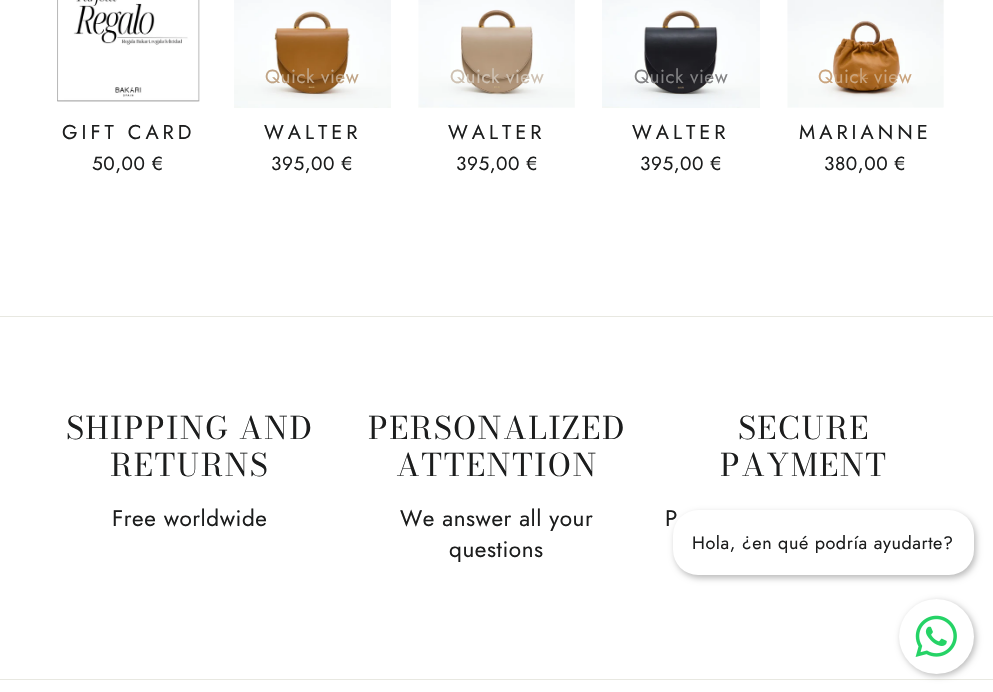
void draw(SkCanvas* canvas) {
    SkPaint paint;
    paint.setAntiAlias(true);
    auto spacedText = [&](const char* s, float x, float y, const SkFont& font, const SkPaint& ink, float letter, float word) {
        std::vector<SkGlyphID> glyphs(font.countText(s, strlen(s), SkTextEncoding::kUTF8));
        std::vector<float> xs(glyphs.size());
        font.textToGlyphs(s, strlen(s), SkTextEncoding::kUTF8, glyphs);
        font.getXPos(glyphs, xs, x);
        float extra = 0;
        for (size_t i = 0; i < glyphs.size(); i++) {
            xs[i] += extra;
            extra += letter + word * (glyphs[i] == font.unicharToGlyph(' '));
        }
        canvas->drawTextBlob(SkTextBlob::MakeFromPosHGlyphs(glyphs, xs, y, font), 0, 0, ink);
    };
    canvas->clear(0xFFFFFFFF);
    canvas->drawImageRect(SkImages::DeferredFromEncodedData(SkData::MakeFromFileName("img1.png")), SkRect::MakeXYWH(57, 0, 143, 102), SkSamplingOptions());
    SkFont font1(fontMgr->matchFamilyStyle("Jost", SkFontStyle::Normal()), 20);
    font1.setSubpixel(true);
    paint.setColor(0xFF1C1D1D);
    spacedText("GIFT CARD", 62, 139, font1, paint, 4, 0);
    SkFont font2(fontMgr->matchFamilyStyle("Jost", SkFontStyle::Normal()), 19);
    font2.setSubpixel(true);
    spacedText("50,00 €", 92, 170, font2, paint, 0.55f, 0);
    canvas->drawImageRect(SkImages::DeferredFromEncodedData(SkData::MakeFromFileName("img2.png")), SkRect::MakeXYWH(234, 0, 157, 108), SkSamplingOptions());
    paint.setColor(0xFFC0A486);
    spacedText("Quick view", 265, 83, font2, paint, 0.5f, 0);
    paint.setColor(0xFF1C1D1D);
    spacedText("WALTER", 264, 139, font1, paint, 4, 0);
    spacedText("395,00 €", 271, 170, font2, paint, 0.55f, 0);
    canvas->drawImageRect(SkImages::DeferredFromEncodedData(SkData::MakeFromFileName("img3.png")), SkRect::MakeXYWH(418, 0, 157, 108), SkSamplingOptions());
    paint.setColor(0xFFCEC1B2);
    spacedText("Quick view", 450, 83, font2, paint, 0.5f, 0);
    paint.setColor(0xFF1C1D1D);
    spacedText("WALTER", 448, 139, font1, paint, 4, 0);
    spacedText("395,00 €", 456, 170, font2, paint, 0.55f, 0);
    canvas->drawImageRect(SkImages::DeferredFromEncodedData(SkData::MakeFromFileName("img4.png")), SkRect::MakeXYWH(602, 0, 158, 108), SkSamplingOptions());
    paint.setColor(0xFF818183);
    spacedText("Quick view", 634, 83, font2, paint, 0.5f, 0);
    paint.setColor(0xFF1C1D1D);
    spacedText("WALTER", 632, 139, font1, paint, 4, 0);
    spacedText("395,00 €", 640, 170, font2, paint, 0.55f, 0);
    canvas->drawImageRect(SkImages::DeferredFromEncodedData(SkData::MakeFromFileName("img5.png")), SkRect::MakeXYWH(787, 0, 157, 108), SkSamplingOptions());
    paint.setColor(0xFFCAA47D);
    spacedText("Quick view", 818, 83, font2, paint, 0.5f, 0);
    paint.setColor(0xFF1C1D1D);
    spacedText("MARIANNE", 799, 139, font1, paint, 4, 0);
    spacedText("380,00 €", 824, 170, font2, paint, 0.55f, 0);
    paint.setColor(0xFFE8E8E1);
    canvas->drawRect(SkRect::MakeXYWH(0, 316, 993, 1), paint);
    SkFont font3(fontMgr->matchFamilyStyle("Bodoni Moda", SkFontStyle::Normal()), 30.9f);
    font3.setSubpixel(true);
    paint.setColor(0xFF1C1D1D);
    spacedText("SHIPPING AND", 66, 439, font3, paint, 1.5f, 0);
    spacedText("RETURNS", 110, 476, font3, paint, 1.5f, 0);
    SkFont font4(fontMgr->matchFamilyStyle("Jost", SkFontStyle::Normal()), 22.5f);
    font4.setSubpixel(true);
    spacedText("Free worldwide", 112, 526, font4, paint, 0.55f, 0);
    spacedText("PERSONALIZED", 368, 439, font3, paint, 1.5f, 0);
    spacedText("ATTENTION", 396, 476, font3, paint, 1.5f, 0);
    spacedText("We answer all your", 400, 526, font4, paint, 0.55f, 0);
    spacedText("questions", 449, 557, font4, paint, 0.55f, 0);
    spacedText("SECURE", 738, 439, font3, paint, 1.5f, 0);
    spacedText("PAYMENT", 720, 476, font3, paint, 1.5f, 0);
    spacedText("P", 665, 526, font4, paint, 0.55f, 0);
    paint.setColor(0x45000000);
    paint.setMaskFilter(SkMaskFilter::MakeBlur(kNormal_SkBlurStyle, 3));
    canvas->drawRoundRect(SkRect::MakeXYWH(675, 513, 301, 65), 25, 25, paint);
    paint.setMaskFilter(nullptr);
    paint.setColor(0xFFFFFFFF);
    canvas->drawRoundRect(SkRect::MakeXYWH(673, 510, 301, 65), 25, 25, paint);
    SkFont font5(fontMgr->matchFamilyStyle("Jost", SkFontStyle::Normal()), 18);
    font5.setSubpixel(true);
    paint.setColor(0xFF1C1D1D);
    spacedText("Hola, ¿en qué podría ayudarte?", 692, 549, font5, paint, 0.55f, 0);
    paint.setColor(0xFFE8E8E1);
    canvas->drawRect(SkRect::MakeXYWH(0, 679, 993, 1), paint);
    paint.setColor(0x45000000);
    paint.setMaskFilter(SkMaskFilter::MakeBlur(kNormal_SkBlurStyle, 3));
    canvas->drawRoundRect(SkRect::MakeXYWH(901, 601, 75, 75), 37.5f, 37.5f, paint);
    paint.setMaskFilter(nullptr);
    paint.setColor(0xFFFFFFFF);
    canvas->drawCircle(936.5f, 636.5f, 37.5f, paint);
    canvas->drawImageRect(SkImages::DeferredFromEncodedData(SkData::MakeFromFileName("img6.png")), SkRect::MakeXYWH(915, 615, 42, 42), SkSamplingOptions());
}
